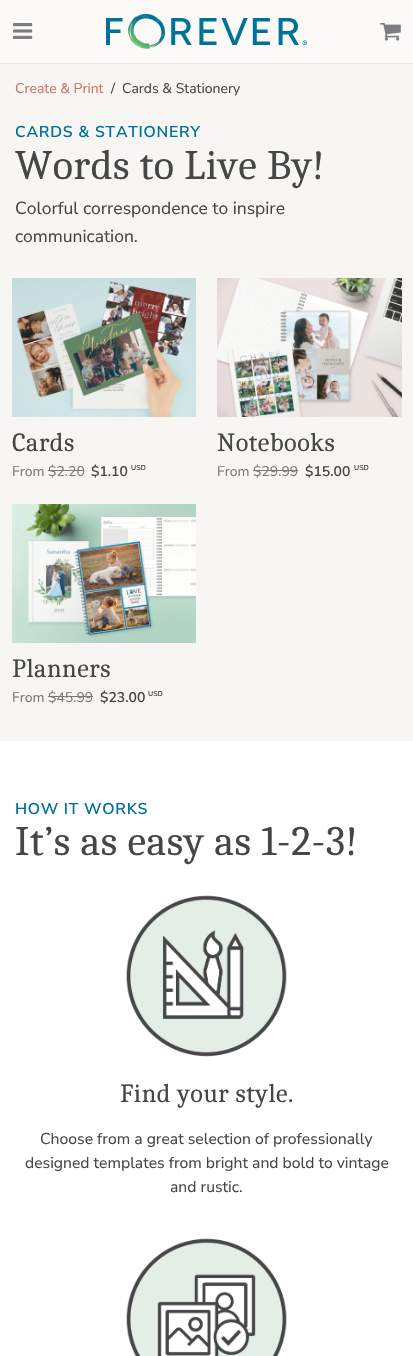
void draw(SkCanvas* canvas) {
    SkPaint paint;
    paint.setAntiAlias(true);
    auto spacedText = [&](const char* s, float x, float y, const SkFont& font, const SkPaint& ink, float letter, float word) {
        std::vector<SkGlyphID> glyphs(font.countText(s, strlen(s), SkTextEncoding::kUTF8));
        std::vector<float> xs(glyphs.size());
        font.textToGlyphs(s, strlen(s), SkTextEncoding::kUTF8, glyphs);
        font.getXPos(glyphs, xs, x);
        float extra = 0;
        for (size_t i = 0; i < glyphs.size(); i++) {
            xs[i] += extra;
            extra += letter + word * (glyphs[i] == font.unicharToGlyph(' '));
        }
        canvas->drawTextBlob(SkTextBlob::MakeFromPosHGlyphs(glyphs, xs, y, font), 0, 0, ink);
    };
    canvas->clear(0xFFFBFAF8);
    paint.setColor(0xFFEDE8E0);
    canvas->drawRect(SkRect::MakeXYWH(0, 63, 413, 1), paint);
    canvas->drawImageRect(SkImages::DeferredFromEncodedData(SkData::MakeFromFileName("img1.png")), SkRect::MakeXYWH(13, 23, 20, 16), SkSamplingOptions());
    canvas->drawImageRect(SkImages::DeferredFromEncodedData(SkData::MakeFromFileName("img2.png")), SkRect::MakeXYWH(106, 14, 201, 35), SkSamplingOptions());
    canvas->drawImageRect(SkImages::DeferredFromEncodedData(SkData::MakeFromFileName("img3.png")), SkRect::MakeXYWH(380, 23, 21, 18), SkSamplingOptions());
    paint.setColor(0xFFFFFFFF);
    canvas->drawRect(SkRect::MakeXYWH(0, 741, 413, 615), paint);
    paint.setColor(0xFFF8F6F3);
    canvas->drawRect(SkRect::MakeXYWH(0, 64, 413, 677), paint);
    SkFont font1(fontMgr->matchFamilyStyle("Nunito Sans", SkFontStyle::Normal()), 14);
    font1.setSubpixel(true);
    paint.setColor(0xFFD07063);
    canvas->drawString("Create & Print", 15, 93, font1, paint);
    paint.setColor(0xFF464547);
    canvas->drawString("/", 111, 93, font1, paint);
    canvas->drawString("Cards & Stationery", 122, 93, font1, paint);
    SkFont font2(fontMgr->matchFamilyStyle("Nunito Sans", SkFontStyle(600, SkFontStyle::kNormal_Width, SkFontStyle::kUpright_Slant)), 15.75f);
    font2.setSubpixel(true);
    paint.setColor(0xFF007198);
    spacedText("CARDS & STATIONERY", 15, 137, font2, paint, 0.75f, 0);
    SkFont font3(fontMgr->matchFamilyStyle("Caladea", SkFontStyle::Normal()), 42);
    font3.setSubpixel(true);
    paint.setColor(0xFF464547);
    spacedText("Words to Live By!", 15, 179, font3, paint, 0.5f, 0);
    SkFont font4(fontMgr->matchFamilyStyle("Nunito Sans", SkFontStyle::Normal()), 17.5f);
    font4.setSubpixel(true);
    canvas->drawString("Colorful correspondence to inspire", 15, 214, font4, paint);
    canvas->drawString("communication.", 15, 242, font4, paint);
    canvas->drawImageRect(SkImages::DeferredFromEncodedData(SkData::MakeFromFileName("img4.png")), SkRect::MakeXYWH(12, 278, 184, 139), SkSamplingOptions());
    SkFont font5(fontMgr->matchFamilyStyle("Caladea", SkFontStyle::Normal()), 26.25f);
    font5.setSubpixel(true);
    spacedText("Cards", 12, 451, font5, paint, 0.5f, 0);
    paint.setColor(0xFF7B7A7B);
    canvas->drawString("From $2.20", 12, 476, font1, paint);
    canvas->drawRect(SkRect::MakeXYWH(48, 470, 36, 1), paint);
    SkFont font6(fontMgr->matchFamilyStyle("Nunito Sans", SkFontStyle(600, SkFontStyle::kNormal_Width, SkFontStyle::kUpright_Slant)), 14);
    font6.setSubpixel(true);
    paint.setColor(0xFF464547);
    canvas->drawString("$1.10", 91, 476, font6, paint);
    SkFont font7(fontMgr->matchFamilyStyle("Nunito Sans", SkFontStyle(600, SkFontStyle::kNormal_Width, SkFontStyle::kUpright_Slant)), 7);
    font7.setSubpixel(true);
    canvas->drawString("USD", 131, 470, font7, paint);
    canvas->drawImageRect(SkImages::DeferredFromEncodedData(SkData::MakeFromFileName("img5.png")), SkRect::MakeXYWH(217, 278, 185, 139), SkSamplingOptions());
    spacedText("Notebooks", 217, 451, font5, paint, 0.5f, 0);
    paint.setColor(0xFF7B7A7B);
    canvas->drawString("From $29.99", 217, 476, font1, paint);
    canvas->drawRect(SkRect::MakeXYWH(253, 470, 45, 1), paint);
    paint.setColor(0xFF464547);
    canvas->drawString("$15.00", 305, 476, font6, paint);
    canvas->drawString("USD", 354, 470, font7, paint);
    canvas->drawImageRect(SkImages::DeferredFromEncodedData(SkData::MakeFromFileName("img6.png")), SkRect::MakeXYWH(12, 504, 184, 139), SkSamplingOptions());
    spacedText("Planners", 12, 677, font5, paint, 0.5f, 0);
    paint.setColor(0xFF7B7A7B);
    canvas->drawString("From $45.99", 12, 702, font1, paint);
    canvas->drawRect(SkRect::MakeXYWH(48, 696, 45, 1), paint);
    paint.setColor(0xFF464547);
    canvas->drawString("$23.00", 100, 702, font6, paint);
    canvas->drawString("USD", 148, 696, font7, paint);
    paint.setColor(0xFF007198);
    spacedText("HOW IT WORKS", 15, 814, font2, paint, 0.75f, 0);
    paint.setColor(0xFF464547);
    spacedText("It’s as easy as 1-2-3!", 15, 855, font3, paint, 0.5f, 0);
    canvas->drawImageRect(SkImages::DeferredFromEncodedData(SkData::MakeFromFileName("img7.png")), SkRect::MakeXYWH(126, 895, 161, 162), SkSamplingOptions());
    spacedText("Find your style.", 120, 1102, font5, paint, 0.5f, 0);
    SkFont font8(fontMgr->matchFamilyStyle("Nunito Sans", SkFontStyle::Normal()), 15.75f);
    font8.setSubpixel(true);
    canvas->drawString("Choose from a great selection of professionally", 40, 1144, font8, paint);
    canvas->drawString("designed templates from bright and bold to vintage", 25, 1168, font8, paint);
    canvas->drawString("and rustic.", 170, 1192, font8, paint);
    canvas->drawImageRect(SkImages::DeferredFromEncodedData(SkData::MakeFromFileName("img8.png")), SkRect::MakeXYWH(126, 1238, 161, 118), SkSamplingOptions());
}
